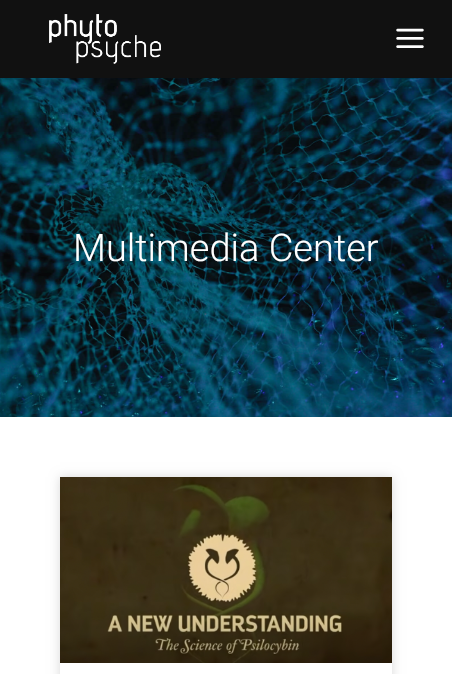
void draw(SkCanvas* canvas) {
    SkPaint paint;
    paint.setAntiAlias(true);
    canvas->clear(0xFFFFFFFF);
    paint.setColor(0xFF111111);
    canvas->drawRect(SkRect::MakeXYWH(0, 0, 452, 78), paint);
    canvas->drawImageRect(SkImages::DeferredFromEncodedData(SkData::MakeFromFileName("img1.png")), SkRect::MakeXYWH(49, 14, 112, 50), SkSamplingOptions());
    canvas->drawImageRect(SkImages::DeferredFromEncodedData(SkData::MakeFromFileName("img2.png")), SkRect::MakeXYWH(396, 28, 28, 20), SkSamplingOptions());
    canvas->drawImageRect(SkImages::DeferredFromEncodedData(SkData::MakeFromFileName("img3.png")), SkRect::MakeXYWH(0, 78, 452, 339), SkSamplingOptions());
    SkFont font1(fontMgr->matchFamilyStyle("Roboto", SkFontStyle(300, SkFontStyle::kNormal_Width, SkFontStyle::kUpright_Slant)), 38);
    font1.setSubpixel(true);
    paint.setColor(0xFFFFFFFF);
    canvas->drawString("Multimedia Center", 73, 261, font1, paint);
    canvas->save();
    canvas->clipPath(SkPathBuilder(SkPathFillType::kEvenOdd).moveTo(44, 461).lineTo(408, 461).lineTo(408, 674).lineTo(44, 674).close().moveTo(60, 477).lineTo(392, 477).lineTo(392, 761).lineTo(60, 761).close().detach(), true);
    paint.setColor(0x26000000);
    paint.setMaskFilter(SkMaskFilter::MakeBlur(kNormal_SkBlurStyle, 5));
    canvas->drawRect(SkRect::MakeXYWH(60, 477, 332, 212), paint);
    paint.setMaskFilter(nullptr);
    canvas->restore();
    canvas->drawImageRect(SkImages::DeferredFromEncodedData(SkData::MakeFromFileName("img4.png")), SkRect::MakeXYWH(60, 477, 332, 186), SkSamplingOptions());
}
